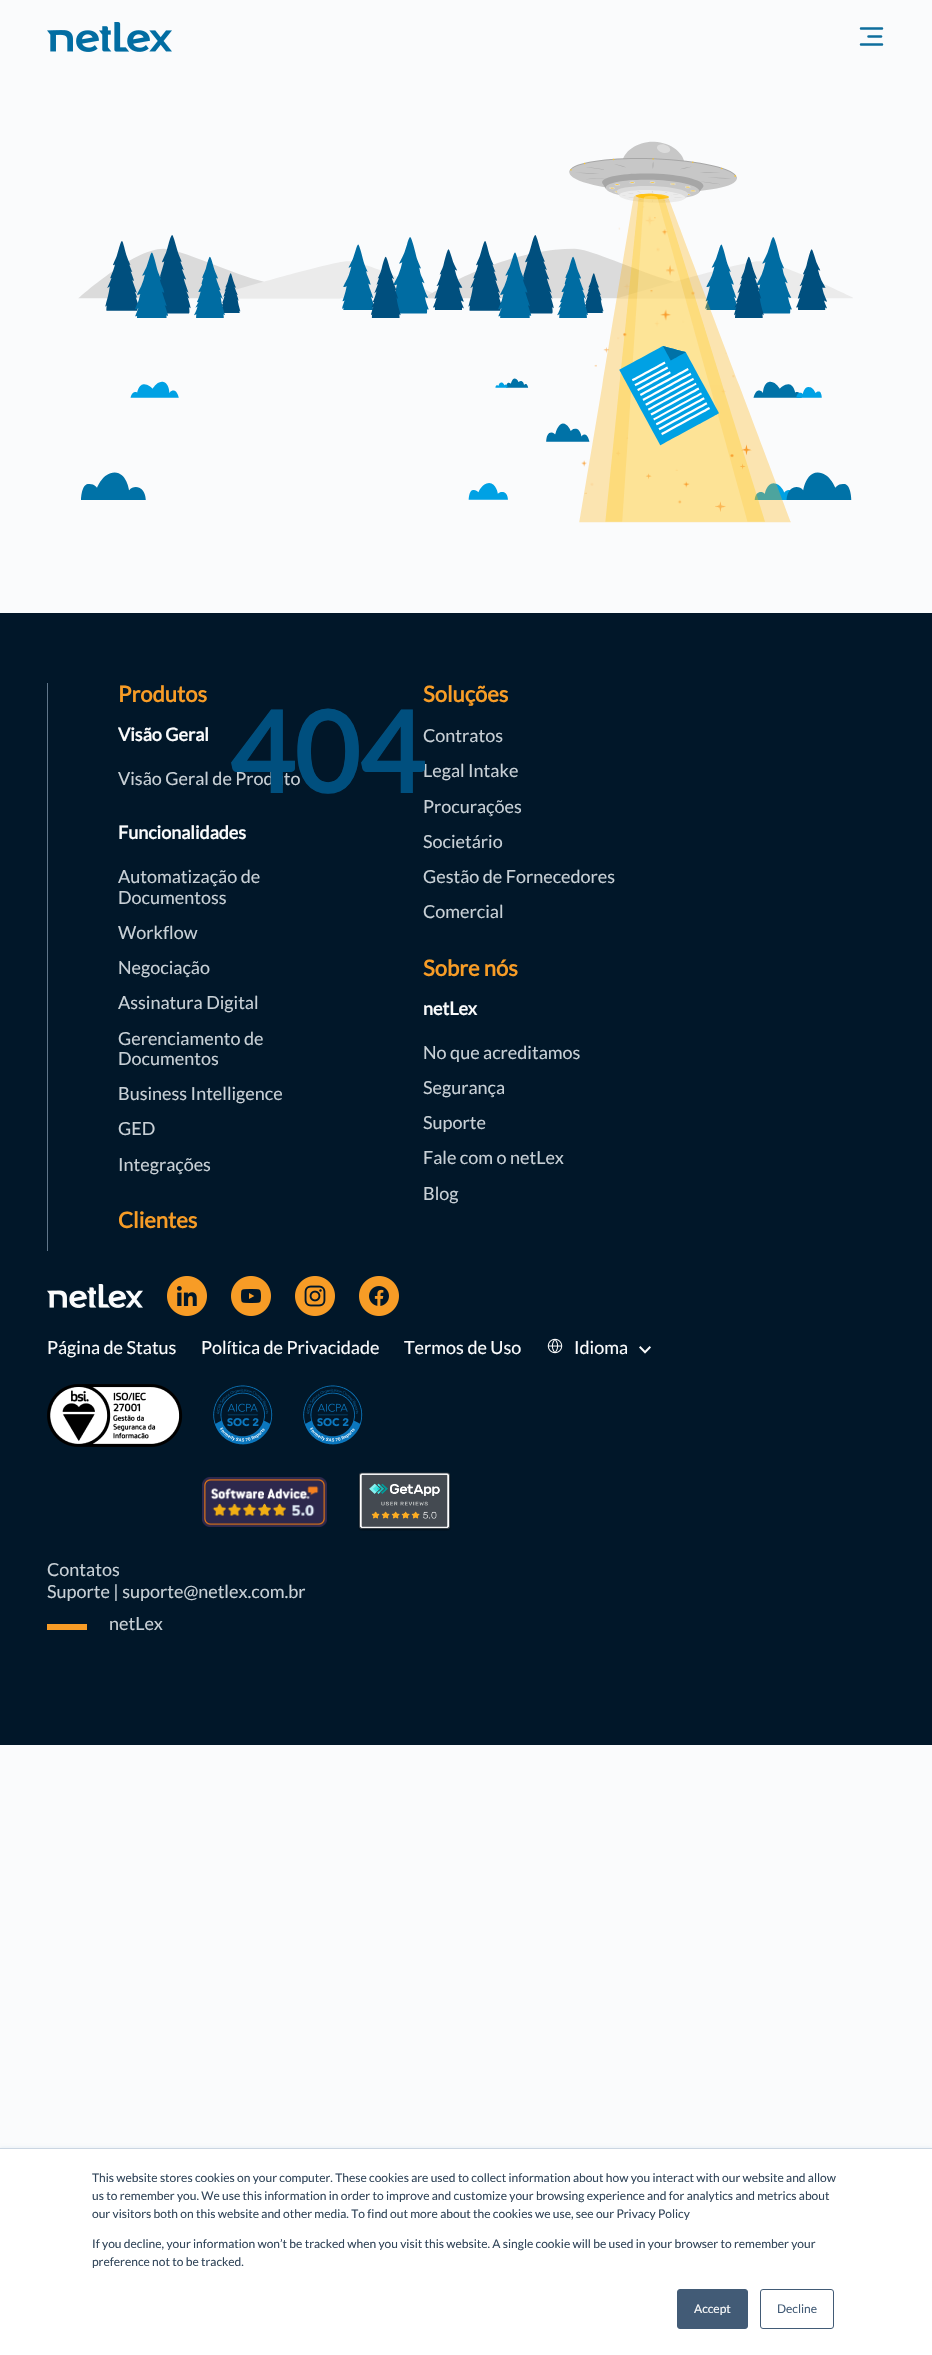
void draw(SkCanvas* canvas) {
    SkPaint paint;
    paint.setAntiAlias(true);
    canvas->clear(0xFFFAFBFC);
    canvas->drawImageRect(SkImages::DeferredFromEncodedData(SkData::MakeFromFileName("img1.png")), SkRect::MakeXYWH(47, 22, 125, 30), SkSamplingOptions());
    canvas->save();
    canvas->clipRect(SkRect::MakeXYWH(855, 24, 30, 25));
    paint.setStyle(SkPaint::kStroke_Style);
    paint.setStrokeWidth(2.5f);
    paint.setStrokeCap(SkPaint::kRound_Cap);
    paint.setStrokeJoin(SkPaint::kRound_Join);
    paint.setColor(0xFF0E6E9D);
    canvas->drawPath(SkPathBuilder().moveTo(847.5f, 41.5f).lineTo(852, 37).moveTo(861, 28.5f).lineTo(882, 28.5f).detach(), paint);
    canvas->restore();
    canvas->drawPath(SkPathBuilder().moveTo(868.5f, 36.5f).lineTo(881, 36.5f).detach(), paint);
    canvas->save();
    canvas->clipRect(SkRect::MakeXYWH(855, 24, 30, 25));
    canvas->drawPath(SkPathBuilder().moveTo(847.5f, 31.5f).lineTo(852, 36).moveTo(861, 44.5f).lineTo(882, 44.5f).detach(), paint);
    canvas->restore();
    paint.setStyle(SkPaint::kFill_Style);
    paint.setColor(0xFF011729);
    canvas->drawRect(SkRect::MakeXYWH(0, 613, 932, 1132), paint);
    paint.setColor(0xFF60768A);
    canvas->drawRect(SkRect::MakeXYWH(47, 683, 1, 568), paint);
    SkFont font1(fontMgr->matchFamilyStyle("Lato", SkFontStyle::Bold()), 22);
    font1.setSubpixel(true);
    paint.setColor(0xFFF79C26);
    canvas->drawString("Produtos", 118, 702, font1, paint);
    SkFont font2(fontMgr->matchFamilyStyle("Lato", SkFontStyle::Bold()), 18);
    font2.setSubpixel(true);
    paint.setColor(0xFFFAFBFC);
    canvas->drawString("Visão Geral", 118, 741, font2, paint);
    SkFont font3(fontMgr->matchFamilyStyle("Lato", SkFontStyle::Normal()), 18);
    font3.setSubpixel(true);
    paint.setColor(0xFFC8D0D6);
    canvas->drawString("Visão Geral de Produto", 118, 785, font3, paint);
    paint.setColor(0xFFFAFBFC);
    canvas->drawString("Funcionalidades", 118, 839, font2, paint);
    paint.setColor(0xFFC8D0D6);
    canvas->drawString("Automatização de", 118, 883, font3, paint);
    canvas->drawString("Documentoss", 118, 904, font3, paint);
    canvas->drawString("Workflow", 118, 939, font3, paint);
    canvas->drawString("Negociação", 118, 974, font3, paint);
    canvas->drawString("Assinatura Digital", 118, 1009, font3, paint);
    canvas->drawString("Gerenciamento de", 118, 1045, font3, paint);
    canvas->drawString("Documentos", 118, 1065, font3, paint);
    canvas->drawString("Business Intelligence", 118, 1100, font3, paint);
    canvas->drawString("GED", 118, 1135, font3, paint);
    canvas->drawString("Integrações", 118, 1171, font3, paint);
    paint.setColor(0xFFF79C26);
    canvas->drawString("Clientes", 118, 1228, font1, paint);
    canvas->drawString("Soluções", 423, 702, font1, paint);
    paint.setColor(0xFFC8D0D6);
    canvas->drawString("Contratos", 423, 742, font3, paint);
    canvas->drawString("Legal Intake", 423, 777, font3, paint);
    canvas->drawString("Procurações", 423, 813, font3, paint);
    canvas->drawString("Societário", 423, 848, font3, paint);
    canvas->drawString("Gestão de Fornecedores", 423, 883, font3, paint);
    canvas->drawString("Comercial", 423, 918, font3, paint);
    paint.setColor(0xFFF79C26);
    canvas->drawString("Sobre nós", 423, 976, font1, paint);
    paint.setColor(0xFFFAFBFC);
    canvas->drawString("netLex", 423, 1015, font2, paint);
    paint.setColor(0xFFC8D0D6);
    canvas->drawString("No que acreditamos", 423, 1059, font3, paint);
    canvas->drawString("Segurança", 423, 1094, font3, paint);
    canvas->drawString("Suporte", 423, 1129, font3, paint);
    canvas->drawString("Fale com o netLex", 423, 1164, font3, paint);
    canvas->drawString("Blog", 423, 1200, font3, paint);
    canvas->drawImageRect(SkImages::DeferredFromEncodedData(SkData::MakeFromFileName("img2.png")), SkRect::MakeXYWH(47, 1284, 96, 24), SkSamplingOptions());
    canvas->drawImageRect(SkImages::DeferredFromEncodedData(SkData::MakeFromFileName("img3.png")), SkRect::MakeXYWH(167, 1276, 40, 40), SkSamplingOptions());
    canvas->drawImageRect(SkImages::DeferredFromEncodedData(SkData::MakeFromFileName("img4.png")), SkRect::MakeXYWH(231, 1276, 40, 40), SkSamplingOptions());
    canvas->drawImageRect(SkImages::DeferredFromEncodedData(SkData::MakeFromFileName("img5.png")), SkRect::MakeXYWH(295, 1276, 40, 40), SkSamplingOptions());
    canvas->drawImageRect(SkImages::DeferredFromEncodedData(SkData::MakeFromFileName("img6.png")), SkRect::MakeXYWH(359, 1276, 40, 40), SkSamplingOptions());
    paint.setColor(0xFFFAFBFC);
    canvas->drawString("Página de Status", 47, 1354, font3, paint);
    canvas->drawString("Política de Privacidade", 201, 1354, font3, paint);
    canvas->drawString("Termos de Uso", 404, 1354, font3, paint);
    canvas->drawImageRect(SkImages::DeferredFromEncodedData(SkData::MakeFromFileName("img7.png")), SkRect::MakeXYWH(547, 1338, 16, 16), SkSamplingOptions());
    canvas->drawString("Idioma", 574, 1354, font3, paint);
    canvas->drawImageRect(SkImages::DeferredFromEncodedData(SkData::MakeFromFileName("img8.png")), SkRect::MakeXYWH(639, 1346, 12, 8), SkSamplingOptions());
    canvas->drawImageRect(SkImages::DeferredFromEncodedData(SkData::MakeFromFileName("img9.png")), SkRect::MakeXYWH(47, 1384, 136, 63), SkSamplingOptions());
    canvas->drawImageRect(SkImages::DeferredFromEncodedData(SkData::MakeFromFileName("img10.png")), SkRect::MakeXYWH(213, 1385, 60, 60), SkSamplingOptions());
    canvas->drawImageRect(SkImages::DeferredFromEncodedData(SkData::MakeFromFileName("img10.png")), SkRect::MakeXYWH(303, 1385, 60, 60), SkSamplingOptions());
    canvas->drawImageRect(SkImages::DeferredFromEncodedData(SkData::MakeFromFileName("img11.png")), SkRect::MakeXYWH(202, 1477, 125, 50), SkSamplingOptions());
    canvas->drawImageRect(SkImages::DeferredFromEncodedData(SkData::MakeFromFileName("img12.png")), SkRect::MakeXYWH(358, 1472, 93, 59), SkSamplingOptions());
    paint.setColor(0xFFC8D0D6);
    canvas->drawString("Contatos", 47, 1576, font3, paint);
    canvas->drawString("Suporte | suporte@netlex.com.br", 47, 1598, font3, paint);
    paint.setColor(0xFFF79C26);
    canvas->drawRect(SkRect::MakeXYWH(47, 1624, 40, 6), paint);
    paint.setColor(0xFFC8D0D6);
    canvas->drawString("netLex", 109, 1630, font3, paint);
    canvas->drawImageRect(SkImages::DeferredFromEncodedData(SkData::MakeFromFileName("img13.png")), SkRect::MakeXYWH(78, 141, 775, 382), SkSamplingOptions());
    SkFont font4(fontMgr->matchFamilyStyle("Lato", SkFontStyle::Bold()), 112);
    font4.setSubpixel(true);
    paint.setColor(0xFF004F7E);
    canvas->drawString("404", 229, 793, font4, paint);
    paint.setColor(0xFFEAF0F6);
    paint.setMaskFilter(SkMaskFilter::MakeBlur(kNormal_SkBlurStyle, 1.5f));
    canvas->drawRect(SkRect::MakeXYWH(0, 2147, 932, 207), paint);
    paint.setMaskFilter(nullptr);
    paint.setColor(0xFFFFFFFF);
    canvas->drawRect(SkRect::MakeXYWH(0, 2149, 932, 206), paint);
    paint.setColor(0xFFCBD6E2);
    canvas->drawRect(SkRect::MakeXYWH(0, 2148, 932, 1), paint);
    SkFont font5(fontMgr->matchFamilyStyle("Lato", SkFontStyle::Normal()), 12);
    font5.setSubpixel(true);
    paint.setColor(0xFF33475B);
    canvas->drawString("This website stores cookies on your computer. These cookies are used to collect information about how you interact with our website and allow", 92, 2182, font5, paint);
    canvas->drawString("us to remember you. We use this information in order to improve and customize your browsing experience and for analytics and metrics about", 92, 2200, font5, paint);
    canvas->drawString("our visitors both on this website and other media. To find out more about the cookies we use, see our Privacy Policy", 92, 2218, font5, paint);
    canvas->drawString("If you decline, your information won’t be tracked when you visit this website. A single cookie will be used in your browser to remember your", 92, 2248, font5, paint);
    canvas->drawString("preference not to be tracked.", 92, 2266, font5, paint);
    paint.setColor(0xFF425B76);
    canvas->drawRoundRect(SkRect::MakeXYWH(677.5f, 2289.5f, 70, 39), 2.5f, 2.5f, paint);
    paint.setStyle(SkPaint::kStroke_Style);
    paint.setStrokeWidth(1);
    paint.setStrokeCap(SkPaint::kButt_Cap);
    paint.setStrokeJoin(SkPaint::kMiter_Join);
    canvas->drawRoundRect(SkRect::MakeXYWH(677.5f, 2289.5f, 70, 39), 2.5f, 2.5f, paint);
    paint.setStyle(SkPaint::kFill_Style);
    paint.setColor(0xFFFAFBFC);
    canvas->drawString("Accept", 694, 2313, font5, paint);
    paint.setStyle(SkPaint::kStroke_Style);
    paint.setColor(0xFF425B76);
    canvas->drawRoundRect(SkRect::MakeXYWH(760.5f, 2289.5f, 73, 39), 2.5f, 2.5f, paint);
    paint.setStyle(SkPaint::kFill_Style);
    canvas->drawString("Decline", 777, 2313, font5, paint);
}
